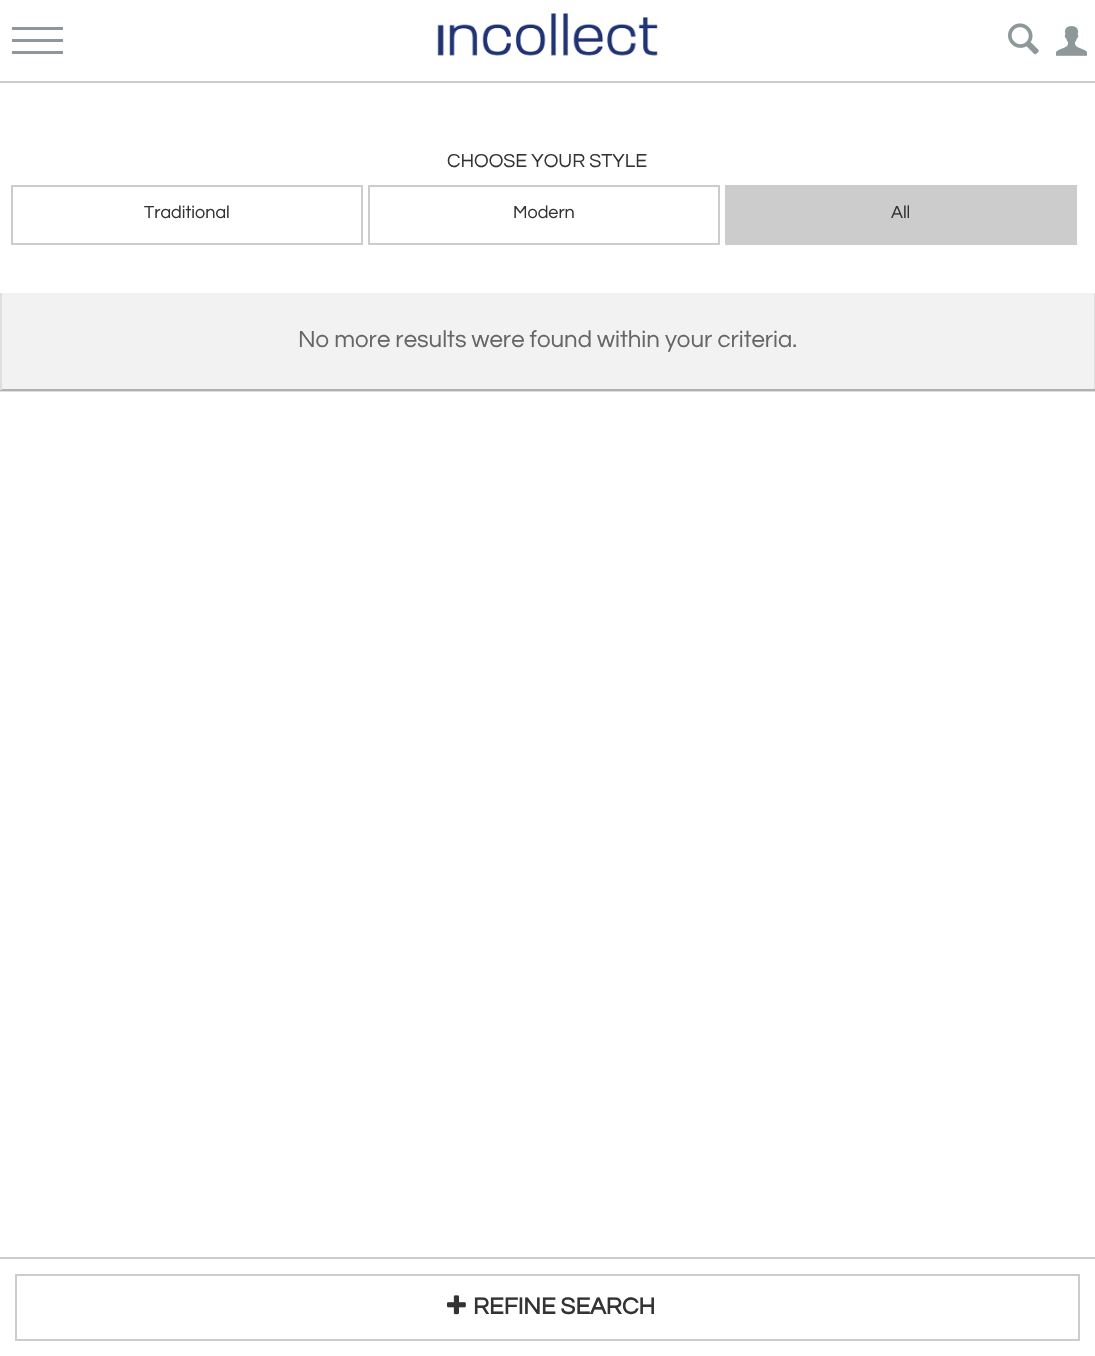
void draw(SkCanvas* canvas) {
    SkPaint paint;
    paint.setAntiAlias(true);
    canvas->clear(0xFFFFFFFF);
    paint.setColor(0xFF8E9799);
    canvas->drawRect(SkRect::MakeXYWH(12, 39, 51, 3), paint);
    canvas->drawRect(SkRect::MakeXYWH(12, 27, 51, 3), paint);
    canvas->drawRect(SkRect::MakeXYWH(12, 51, 51, 3), paint);
    paint.setColor(0xFFCCCCCC);
    canvas->drawRect(SkRect::MakeXYWH(0, 81, 1095, 2), paint);
    canvas->drawImageRect(SkImages::DeferredFromEncodedData(SkData::MakeFromFileName("img1.png")), SkRect::MakeXYWH(437, 13, 221, 43), SkSamplingOptions());
    canvas->drawImageRect(SkImages::DeferredFromEncodedData(SkData::MakeFromFileName("img2.png")), SkRect::MakeXYWH(1008, 23, 31, 32), SkSamplingOptions());
    canvas->drawImageRect(SkImages::DeferredFromEncodedData(SkData::MakeFromFileName("img3.png")), SkRect::MakeXYWH(1056, 26, 31, 30), SkSamplingOptions());
    SkFont font1(fontMgr->matchFamilyStyle("Questrial", SkFontStyle::Normal()), 19.5f);
    font1.setSubpixel(true);
    paint.setColor(0xFF333333);
    canvas->drawString("CHOOSE YOUR STYLE", 447, 167, font1, paint);
    paint.setStyle(SkPaint::kStroke_Style);
    paint.setStrokeWidth(2);
    paint.setColor(0xFFCCCCCC);
    canvas->drawRect(SkRect::MakeXYWH(12, 186, 350, 58), paint);
    SkFont font2(fontMgr->matchFamilyStyle("Questrial", SkFontStyle::Normal()), 18);
    font2.setSubpixel(true);
    paint.setStyle(SkPaint::kFill_Style);
    paint.setColor(0xFF333333);
    canvas->drawString("Traditional", 144, 218, font2, paint);
    paint.setStyle(SkPaint::kStroke_Style);
    paint.setColor(0xFFCCCCCC);
    canvas->drawRect(SkRect::MakeXYWH(369, 186, 350, 58), paint);
    paint.setStyle(SkPaint::kFill_Style);
    paint.setColor(0xFF333333);
    canvas->drawString("Modern", 513, 218, font2, paint);
    paint.setColor(0xFFCCCCCC);
    canvas->drawRect(SkRect::MakeXYWH(725, 185, 352, 60), paint);
    paint.setColor(0xFF333333);
    canvas->drawString("All", 891, 218, font2, paint);
    paint.setColor(0xFFCCCCCC);
    canvas->drawRect(SkRect::MakeXYWH(0, 1257, 1095, 2), paint);
    paint.setStyle(SkPaint::kStroke_Style);
    canvas->drawRect(SkRect::MakeXYWH(16, 1275, 1063, 65), paint);
    canvas->drawImageRect(SkImages::DeferredFromEncodedData(SkData::MakeFromFileName("img4.png")), SkRect::MakeXYWH(447, 1295, 19, 20), SkSamplingOptions());
    SkFont font3(fontMgr->matchFamilyStyle("Questrial", SkFontStyle::Bold()), 24);
    font3.setSubpixel(true);
    paint.setStyle(SkPaint::kFill_Style);
    paint.setColor(0xFF333333);
    canvas->drawString("REFINE SEARCH", 473, 1314, font3, paint);
    paint.setColor(0xFFDEDEDE);
    canvas->drawRect(SkRect::MakeXYWH(0, 391, 1095, 1), paint);
    paint.setColor(0xFFF2F2F2);
    canvas->drawRect(SkRect::MakeXYWH(2, 293, 1092, 96), paint);
    paint.setColor(0xFFDEDEDE);
    canvas->drawRect(SkRect::MakeXYWH(1094, 293, 1, 97), paint);
    paint.setColor(0xFFB1B1B1);
    canvas->drawRect(SkRect::MakeXYWH(0, 389, 1095, 2), paint);
    paint.setColor(0xFFDEDEDE);
    canvas->drawRect(SkRect::MakeXYWH(0, 293, 2, 97), paint);
    SkFont font4(fontMgr->matchFamilyStyle("Questrial", SkFontStyle::Normal()), 24);
    font4.setSubpixel(true);
    paint.setColor(0xFF666666);
    canvas->drawString("No more results were found within your criteria.", 298, 347, font4, paint);
}
